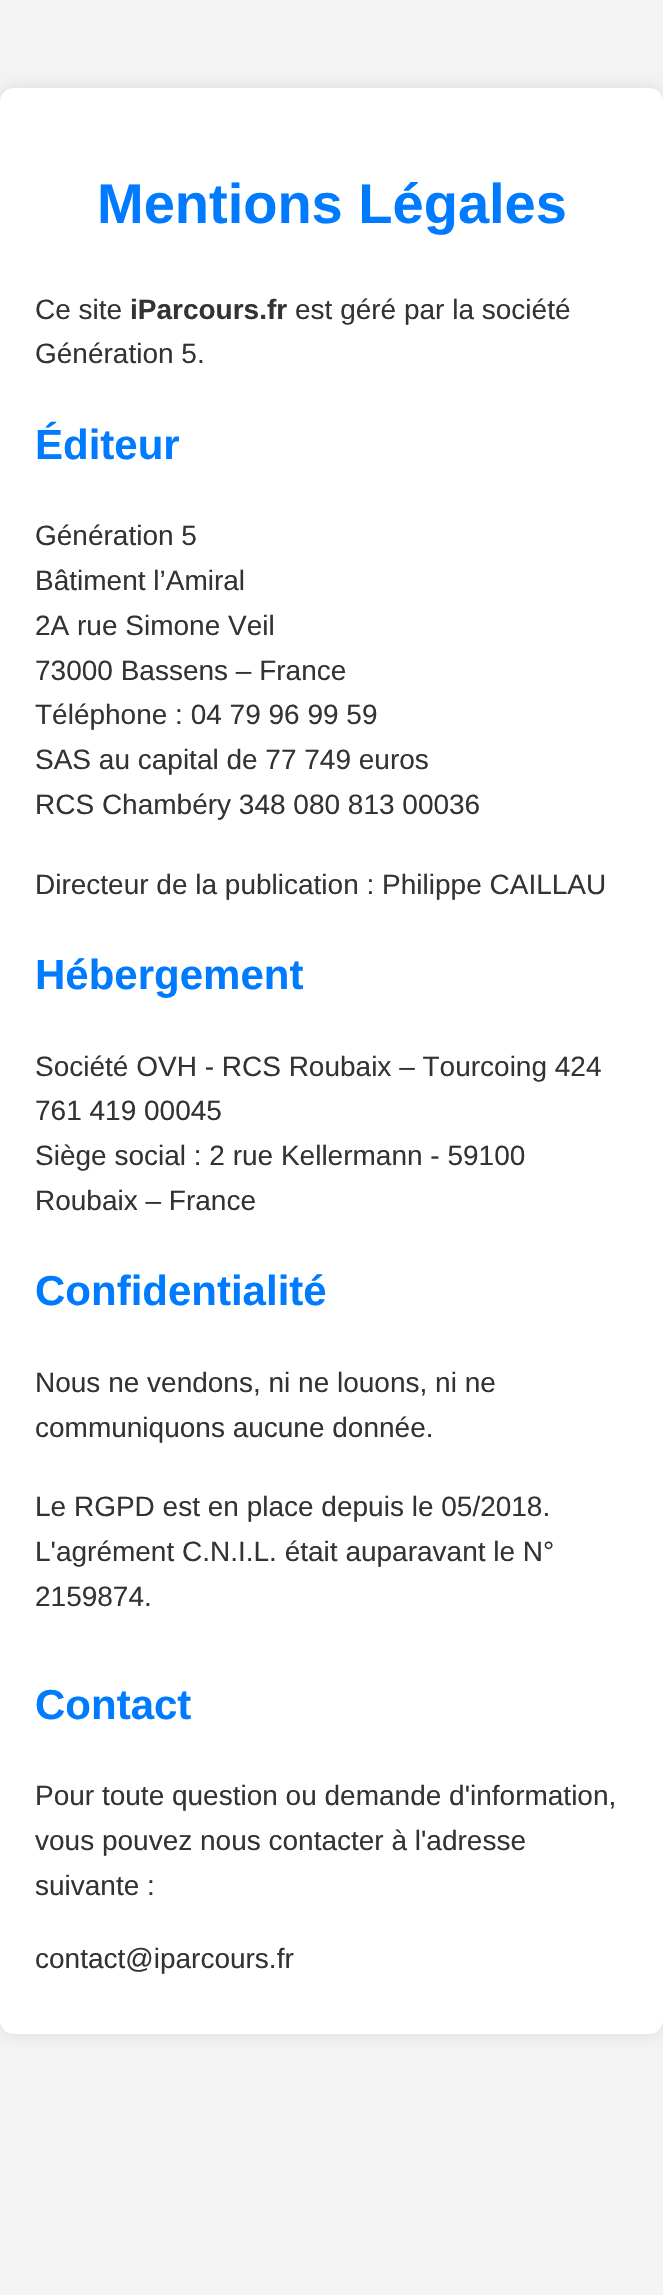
void draw(SkCanvas* canvas) {
    SkPaint paint;
    paint.setAntiAlias(true);
    canvas->clear(0xFFF4F4F4);
    paint.setColor(0x1A000000);
    paint.setMaskFilter(SkMaskFilter::MakeBlur(kNormal_SkBlurStyle, 9));
    canvas->drawRoundRect(SkRect::MakeXYWH(0, 88, 663, 1946), 14, 14, paint);
    paint.setMaskFilter(nullptr);
    paint.setColor(0xFFFFFFFF);
    canvas->drawRoundRect(SkRect::MakeXYWH(0, 88, 663, 1946), 14, 14, paint);
    SkFont font1(fontMgr->matchFamilyStyle("Liberation Sans", SkFontStyle::Bold()), 56);
    font1.setSubpixel(true);
    paint.setColor(0xFF007BFF);
    canvas->drawString("Mentions Légales", 97, 223, font1, paint);
    SkFont font2(fontMgr->matchFamilyStyle("Liberation Sans", SkFontStyle::Normal()), 28);
    font2.setSubpixel(true);
    paint.setColor(0xFF333333);
    canvas->drawString("Ce site", 35, 319, font2, paint);
    SkFont font3(fontMgr->matchFamilyStyle("Liberation Sans", SkFontStyle::Bold()), 28);
    font3.setSubpixel(true);
    canvas->drawString("iParcours.fr", 130, 319, font3, paint);
    canvas->drawString("est géré par la société", 295, 319, font2, paint);
    canvas->drawString("Génération 5.", 35, 363, font2, paint);
    SkFont font4(fontMgr->matchFamilyStyle("Liberation Sans", SkFontStyle::Bold()), 42);
    font4.setSubpixel(true);
    paint.setColor(0xFF007BFF);
    canvas->drawString("Éditeur", 35, 459, font4, paint);
    paint.setColor(0xFF333333);
    canvas->drawString("Génération 5", 35, 545, font2, paint);
    canvas->drawString("Bâtiment l’Amiral", 35, 590, font2, paint);
    canvas->drawString("2A rue Simone Veil", 35, 635, font2, paint);
    canvas->drawString("73000 Bassens – France", 35, 680, font2, paint);
    canvas->drawString("Téléphone : 04 79 96 99 59", 35, 724, font2, paint);
    canvas->drawString("SAS au capital de 77 749 euros", 35, 769, font2, paint);
    canvas->drawString("RCS Chambéry 348 080 813 00036", 35, 814, font2, paint);
    canvas->drawString("Directeur de la publication : Philippe CAILLAU", 35, 894, font2, paint);
    paint.setColor(0xFF007BFF);
    canvas->drawString("Hébergement", 35, 989, font4, paint);
    paint.setColor(0xFF333333);
    canvas->drawString("Société OVH - RCS Roubaix – Tourcoing 424", 35, 1076, font2, paint);
    canvas->drawString("761 419 00045", 35, 1120, font2, paint);
    canvas->drawString("Siège social : 2 rue Kellermann - 59100", 35, 1165, font2, paint);
    canvas->drawString("Roubaix – France", 35, 1210, font2, paint);
    paint.setColor(0xFF007BFF);
    canvas->drawString("Confidentialité", 35, 1305, font4, paint);
    paint.setColor(0xFF333333);
    canvas->drawString("Nous ne vendons, ni ne louons, ni ne", 35, 1392, font2, paint);
    canvas->drawString("communiquons aucune donnée.", 35, 1437, font2, paint);
    canvas->drawString("Le RGPD est en place depuis le 05/2018.", 35, 1516, font2, paint);
    canvas->drawString("L'agrément C.N.I.L. était auparavant le N°", 35, 1561, font2, paint);
    canvas->drawString("2159874.", 35, 1606, font2, paint);
    paint.setColor(0xFF007BFF);
    canvas->drawString("Contact", 35, 1719, font4, paint);
    paint.setColor(0xFF333333);
    canvas->drawString("Pour toute question ou demande d'information,", 35, 1805, font2, paint);
    canvas->drawString("vous pouvez nous contacter à l'adresse", 35, 1850, font2, paint);
    canvas->drawString("suivante :", 35, 1895, font2, paint);
    canvas->drawString("contact@iparcours.fr", 35, 1968, font2, paint);
}
